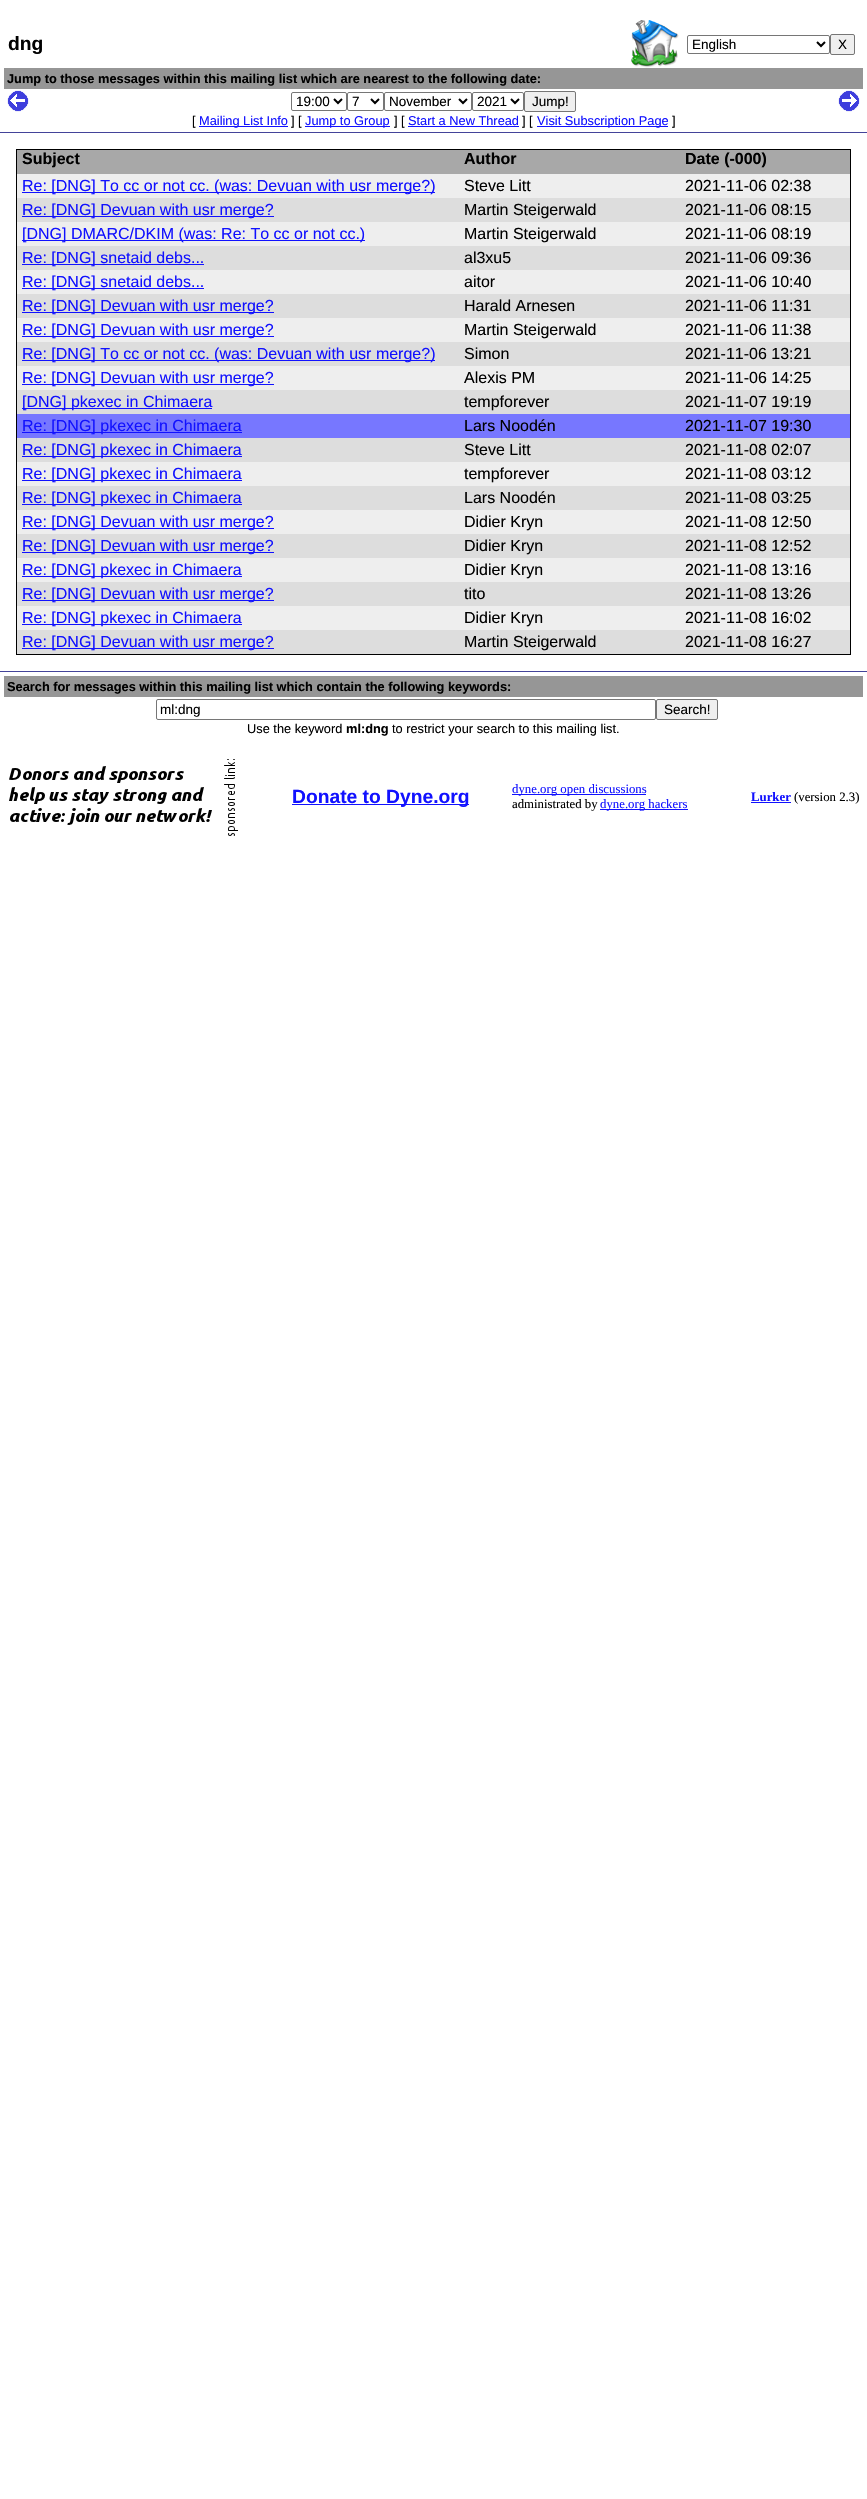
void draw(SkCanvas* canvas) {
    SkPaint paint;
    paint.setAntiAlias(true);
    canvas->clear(0xFFFFFFFF);
    paint.setColor(0xFF434399);
    canvas->drawRect(SkRect::MakeXYWH(0, 132, 867, 1), paint);
    SkFont font1(fontMgr->matchFamilyStyle("Liberation Sans", SkFontStyle::Bold()), 19.25f);
    font1.setSubpixel(true);
    paint.setColor(0xFF000000);
    canvas->drawString("dng", 8, 50, font1, paint);
    canvas->drawImageRect(SkImages::DeferredFromEncodedData(SkData::MakeFromFileName("img1.png")), SkRect::MakeXYWH(631, 20, 48, 48), SkSamplingOptions());
    paint.setStyle(SkPaint::kStroke_Style);
    paint.setStrokeWidth(1);
    paint.setColor(0xFF767676);
    canvas->drawRoundRect(SkRect::MakeXYWH(687.5f, 35.5f, 142, 18), 1.5f, 1.5f, paint);
    paint.setStrokeWidth(2);
    paint.setColor(0xFF000000);
    canvas->drawPath(SkPathBuilder().moveTo(817, 42).lineTo(821, 46).lineTo(825, 42).detach(), paint);
    SkFont font2(fontMgr->matchFamilyStyle("Liberation Sans", SkFontStyle::Normal()), 13.5f);
    font2.setSubpixel(true);
    paint.setStyle(SkPaint::kFill_Style);
    canvas->drawString("English", 692, 49, font2, paint);
    paint.setColor(0xFFEFEFEF);
    canvas->drawRoundRect(SkRect::MakeXYWH(830.5f, 34.5f, 24, 20), 1.5f, 1.5f, paint);
    paint.setStyle(SkPaint::kStroke_Style);
    paint.setStrokeWidth(1);
    paint.setColor(0xFF767676);
    canvas->drawRoundRect(SkRect::MakeXYWH(830.5f, 34.5f, 24, 20), 1.5f, 1.5f, paint);
    paint.setStyle(SkPaint::kFill_Style);
    paint.setColor(0xFF000000);
    canvas->drawString("X", 838, 49, font2, paint);
    paint.setColor(0xFF969696);
    canvas->drawRect(SkRect::MakeXYWH(4, 68, 859, 21), paint);
    SkFont font3(fontMgr->matchFamilyStyle("Liberation Sans", SkFontStyle::Bold()), 12.8f);
    font3.setSubpixel(true);
    paint.setColor(0xFF000000);
    canvas->drawString("Jump to those messages within this mailing list which are nearest to the following date:", 7, 83, font3, paint);
    canvas->drawImageRect(SkImages::DeferredFromEncodedData(SkData::MakeFromFileName("img2.png")), SkRect::MakeXYWH(7, 90, 22, 22), SkSamplingOptions());
    paint.setStyle(SkPaint::kStroke_Style);
    paint.setColor(0xFF767676);
    canvas->drawRoundRect(SkRect::MakeXYWH(291.5f, 92.5f, 55, 18), 1.5f, 1.5f, paint);
    paint.setStrokeWidth(2);
    paint.setColor(0xFF000000);
    canvas->drawPath(SkPathBuilder().moveTo(334, 99).lineTo(338, 103).lineTo(342, 99).detach(), paint);
    paint.setStyle(SkPaint::kFill_Style);
    canvas->drawString("19:00", 296, 106, font2, paint);
    paint.setStyle(SkPaint::kStroke_Style);
    paint.setStrokeWidth(1);
    paint.setColor(0xFF767676);
    canvas->drawRoundRect(SkRect::MakeXYWH(347.5f, 92.5f, 36, 18), 1.5f, 1.5f, paint);
    paint.setStrokeWidth(2);
    paint.setColor(0xFF000000);
    canvas->drawPath(SkPathBuilder().moveTo(371, 99).lineTo(375, 103).lineTo(379, 99).detach(), paint);
    paint.setStyle(SkPaint::kFill_Style);
    canvas->drawString("7", 352, 106, font2, paint);
    paint.setStyle(SkPaint::kStroke_Style);
    paint.setStrokeWidth(1);
    paint.setColor(0xFF767676);
    canvas->drawRoundRect(SkRect::MakeXYWH(384.5f, 92.5f, 87, 18), 1.5f, 1.5f, paint);
    paint.setStrokeWidth(2);
    paint.setColor(0xFF000000);
    canvas->drawPath(SkPathBuilder().moveTo(459, 99).lineTo(463, 103).lineTo(467, 99).detach(), paint);
    paint.setStyle(SkPaint::kFill_Style);
    canvas->drawString("November", 389, 106, font2, paint);
    paint.setStyle(SkPaint::kStroke_Style);
    paint.setStrokeWidth(1);
    paint.setColor(0xFF767676);
    canvas->drawRoundRect(SkRect::MakeXYWH(472.5f, 92.5f, 51, 18), 1.5f, 1.5f, paint);
    paint.setStrokeWidth(2);
    paint.setColor(0xFF000000);
    canvas->drawPath(SkPathBuilder().moveTo(511, 99).lineTo(515, 103).lineTo(519, 99).detach(), paint);
    paint.setStyle(SkPaint::kFill_Style);
    canvas->drawString("2021", 477, 106, font2, paint);
    paint.setColor(0xFFEFEFEF);
    canvas->drawRoundRect(SkRect::MakeXYWH(524.5f, 91.5f, 51, 20), 1.5f, 1.5f, paint);
    paint.setStyle(SkPaint::kStroke_Style);
    paint.setStrokeWidth(1);
    paint.setColor(0xFF767676);
    canvas->drawRoundRect(SkRect::MakeXYWH(524.5f, 91.5f, 51, 20), 1.5f, 1.5f, paint);
    paint.setStyle(SkPaint::kFill_Style);
    paint.setColor(0xFF000000);
    canvas->drawString("Jump!", 532, 106, font2, paint);
    canvas->drawImageRect(SkImages::DeferredFromEncodedData(SkData::MakeFromFileName("img3.png")), SkRect::MakeXYWH(838, 90, 22, 22), SkSamplingOptions());
    SkFont font4(fontMgr->matchFamilyStyle("Liberation Sans", SkFontStyle::Normal()), 12.8f);
    font4.setSubpixel(true);
    canvas->drawString("[", 192, 125, font4, paint);
    paint.setColor(0xFF1111FF);
    canvas->drawRect(SkRect::MakeXYWH(199, 126, 89, 1), paint);
    canvas->drawString("Mailing List Info", 199, 125, font4, paint);
    paint.setColor(0xFF000000);
    canvas->drawString("] [", 291, 125, font4, paint);
    paint.setColor(0xFF1111FF);
    canvas->drawRect(SkRect::MakeXYWH(305, 126, 85, 1), paint);
    canvas->drawString("Jump to Group", 305, 125, font4, paint);
    paint.setColor(0xFF000000);
    canvas->drawString("] [", 394, 125, font4, paint);
    paint.setColor(0xFF1111FF);
    canvas->drawString("Start a New Thread", 408, 125, font4, paint);
    canvas->drawRect(SkRect::MakeXYWH(408, 126, 111, 1), paint);
    paint.setColor(0xFF000000);
    canvas->drawString("] [", 522, 125, font4, paint);
    paint.setColor(0xFF1111FF);
    canvas->drawRect(SkRect::MakeXYWH(537, 126, 131, 1), paint);
    canvas->drawString("Visit Subscription Page", 537, 125, font4, paint);
    paint.setColor(0xFF000000);
    canvas->drawString("]", 672, 125, font4, paint);
    paint.setStyle(SkPaint::kStroke_Style);
    canvas->drawRect(SkRect::MakeXYWH(16.5f, 149.5f, 834, 505), paint);
    paint.setStyle(SkPaint::kFill_Style);
    paint.setColor(0xFFA8A8A8);
    canvas->drawRect(SkRect::MakeXYWH(17, 150, 833, 24), paint);
    SkFont font5(fontMgr->matchFamilyStyle("Liberation Sans", SkFontStyle::Bold()), 16);
    font5.setSubpixel(true);
    paint.setColor(0xFF000000);
    canvas->drawString("Subject", 22, 164, font5, paint);
    canvas->drawString("Author", 464, 164, font5, paint);
    canvas->drawString("Date (-000)", 685, 164, font5, paint);
    paint.setColor(0xFFEEEEEE);
    canvas->drawRect(SkRect::MakeXYWH(17, 174, 833, 24), paint);
    paint.setColor(0xFF1111FF);
    canvas->drawRect(SkRect::MakeXYWH(22, 192, 413, 1), paint);
    SkFont font6(fontMgr->matchFamilyStyle("Liberation Sans", SkFontStyle::Normal()), 16);
    font6.setSubpixel(true);
    canvas->drawString("Re: [DNG] To cc or not cc. (was: Devuan with usr merge?)", 22, 191, font6, paint);
    paint.setColor(0xFF000000);
    canvas->drawString("Steve Litt", 464, 191, font6, paint);
    canvas->drawString("2021-11-06 02:38", 685, 191, font6, paint);
    paint.setColor(0xFFDDDDDD);
    canvas->drawRect(SkRect::MakeXYWH(17, 198, 833, 24), paint);
    paint.setColor(0xFF1111FF);
    canvas->drawRect(SkRect::MakeXYWH(22, 216, 252, 1), paint);
    canvas->drawString("Re: [DNG] Devuan with usr merge?", 22, 215, font6, paint);
    paint.setColor(0xFF000000);
    canvas->drawString("Martin Steigerwald", 464, 215, font6, paint);
    canvas->drawString("2021-11-06 08:15", 685, 215, font6, paint);
    paint.setColor(0xFFEEEEEE);
    canvas->drawRect(SkRect::MakeXYWH(17, 222, 833, 24), paint);
    paint.setColor(0xFF1111FF);
    canvas->drawRect(SkRect::MakeXYWH(22, 240, 343, 1), paint);
    canvas->drawString("[DNG] DMARC/DKIM (was: Re: To cc or not cc.)", 22, 239, font6, paint);
    paint.setColor(0xFF000000);
    canvas->drawString("Martin Steigerwald", 464, 239, font6, paint);
    canvas->drawString("2021-11-06 08:19", 685, 239, font6, paint);
    paint.setColor(0xFFDDDDDD);
    canvas->drawRect(SkRect::MakeXYWH(17, 246, 833, 24), paint);
    paint.setColor(0xFF1111FF);
    canvas->drawRect(SkRect::MakeXYWH(22, 264, 182, 1), paint);
    canvas->drawString("Re: [DNG] snetaid debs...", 22, 263, font6, paint);
    paint.setColor(0xFF000000);
    canvas->drawString("al3xu5", 464, 263, font6, paint);
    canvas->drawString("2021-11-06 09:36", 685, 263, font6, paint);
    paint.setColor(0xFFEEEEEE);
    canvas->drawRect(SkRect::MakeXYWH(17, 270, 833, 24), paint);
    paint.setColor(0xFF1111FF);
    canvas->drawRect(SkRect::MakeXYWH(22, 288, 182, 1), paint);
    canvas->drawString("Re: [DNG] snetaid debs...", 22, 287, font6, paint);
    paint.setColor(0xFF000000);
    canvas->drawString("aitor", 464, 287, font6, paint);
    canvas->drawString("2021-11-06 10:40", 685, 287, font6, paint);
    paint.setColor(0xFFDDDDDD);
    canvas->drawRect(SkRect::MakeXYWH(17, 294, 833, 24), paint);
    paint.setColor(0xFF1111FF);
    canvas->drawRect(SkRect::MakeXYWH(22, 312, 252, 1), paint);
    canvas->drawString("Re: [DNG] Devuan with usr merge?", 22, 311, font6, paint);
    paint.setColor(0xFF000000);
    canvas->drawString("Harald Arnesen", 464, 311, font6, paint);
    canvas->drawString("2021-11-06 11:31", 685, 311, font6, paint);
    paint.setColor(0xFFEEEEEE);
    canvas->drawRect(SkRect::MakeXYWH(17, 318, 833, 24), paint);
    paint.setColor(0xFF1111FF);
    canvas->drawRect(SkRect::MakeXYWH(22, 336, 252, 1), paint);
    canvas->drawString("Re: [DNG] Devuan with usr merge?", 22, 335, font6, paint);
    paint.setColor(0xFF000000);
    canvas->drawString("Martin Steigerwald", 464, 335, font6, paint);
    canvas->drawString("2021-11-06 11:38", 685, 335, font6, paint);
    paint.setColor(0xFFDDDDDD);
    canvas->drawRect(SkRect::MakeXYWH(17, 342, 833, 24), paint);
    paint.setColor(0xFF1111FF);
    canvas->drawRect(SkRect::MakeXYWH(22, 360, 413, 1), paint);
    canvas->drawString("Re: [DNG] To cc or not cc. (was: Devuan with usr merge?)", 22, 359, font6, paint);
    paint.setColor(0xFF000000);
    canvas->drawString("Simon", 464, 359, font6, paint);
    canvas->drawString("2021-11-06 13:21", 685, 359, font6, paint);
    paint.setColor(0xFFEEEEEE);
    canvas->drawRect(SkRect::MakeXYWH(17, 366, 833, 24), paint);
    paint.setColor(0xFF1111FF);
    canvas->drawRect(SkRect::MakeXYWH(22, 384, 252, 1), paint);
    canvas->drawString("Re: [DNG] Devuan with usr merge?", 22, 383, font6, paint);
    paint.setColor(0xFF000000);
    canvas->drawString("Alexis PM", 464, 383, font6, paint);
    canvas->drawString("2021-11-06 14:25", 685, 383, font6, paint);
    paint.setColor(0xFFDDDDDD);
    canvas->drawRect(SkRect::MakeXYWH(17, 390, 833, 24), paint);
    paint.setColor(0xFF1111FF);
    canvas->drawRect(SkRect::MakeXYWH(22, 408, 190, 1), paint);
    canvas->drawString("[DNG] pkexec in Chimaera", 22, 407, font6, paint);
    paint.setColor(0xFF000000);
    canvas->drawString("tempforever", 464, 407, font6, paint);
    canvas->drawString("2021-11-07 19:19", 685, 407, font6, paint);
    paint.setColor(0xFF7777FF);
    canvas->drawRect(SkRect::MakeXYWH(17, 414, 833, 24), paint);
    paint.setColor(0xFF1111FF);
    canvas->drawRect(SkRect::MakeXYWH(22, 432, 220, 1), paint);
    canvas->drawString("Re: [DNG] pkexec in Chimaera", 22, 431, font6, paint);
    paint.setColor(0xFF000000);
    canvas->drawString("Lars Noodén", 464, 431, font6, paint);
    canvas->drawString("2021-11-07 19:30", 685, 431, font6, paint);
    paint.setColor(0xFFDDDDDD);
    canvas->drawRect(SkRect::MakeXYWH(17, 438, 833, 24), paint);
    paint.setColor(0xFF1111FF);
    canvas->drawRect(SkRect::MakeXYWH(22, 456, 220, 1), paint);
    canvas->drawString("Re: [DNG] pkexec in Chimaera", 22, 455, font6, paint);
    paint.setColor(0xFF000000);
    canvas->drawString("Steve Litt", 464, 455, font6, paint);
    canvas->drawString("2021-11-08 02:07", 685, 455, font6, paint);
    paint.setColor(0xFFEEEEEE);
    canvas->drawRect(SkRect::MakeXYWH(17, 462, 833, 24), paint);
    paint.setColor(0xFF1111FF);
    canvas->drawRect(SkRect::MakeXYWH(22, 480, 220, 1), paint);
    canvas->drawString("Re: [DNG] pkexec in Chimaera", 22, 479, font6, paint);
    paint.setColor(0xFF000000);
    canvas->drawString("tempforever", 464, 479, font6, paint);
    canvas->drawString("2021-11-08 03:12", 685, 479, font6, paint);
    paint.setColor(0xFFDDDDDD);
    canvas->drawRect(SkRect::MakeXYWH(17, 486, 833, 24), paint);
    paint.setColor(0xFF1111FF);
    canvas->drawRect(SkRect::MakeXYWH(22, 504, 220, 1), paint);
    canvas->drawString("Re: [DNG] pkexec in Chimaera", 22, 503, font6, paint);
    paint.setColor(0xFF000000);
    canvas->drawString("Lars Noodén", 464, 503, font6, paint);
    canvas->drawString("2021-11-08 03:25", 685, 503, font6, paint);
    paint.setColor(0xFFEEEEEE);
    canvas->drawRect(SkRect::MakeXYWH(17, 510, 833, 24), paint);
    paint.setColor(0xFF1111FF);
    canvas->drawRect(SkRect::MakeXYWH(22, 528, 252, 1), paint);
    canvas->drawString("Re: [DNG] Devuan with usr merge?", 22, 527, font6, paint);
    paint.setColor(0xFF000000);
    canvas->drawString("Didier Kryn", 464, 527, font6, paint);
    canvas->drawString("2021-11-08 12:50", 685, 527, font6, paint);
    paint.setColor(0xFFDDDDDD);
    canvas->drawRect(SkRect::MakeXYWH(17, 534, 833, 24), paint);
    paint.setColor(0xFF1111FF);
    canvas->drawRect(SkRect::MakeXYWH(22, 552, 252, 1), paint);
    canvas->drawString("Re: [DNG] Devuan with usr merge?", 22, 551, font6, paint);
    paint.setColor(0xFF000000);
    canvas->drawString("Didier Kryn", 464, 551, font6, paint);
    canvas->drawString("2021-11-08 12:52", 685, 551, font6, paint);
    paint.setColor(0xFFEEEEEE);
    canvas->drawRect(SkRect::MakeXYWH(17, 558, 833, 24), paint);
    paint.setColor(0xFF1111FF);
    canvas->drawRect(SkRect::MakeXYWH(22, 576, 220, 1), paint);
    canvas->drawString("Re: [DNG] pkexec in Chimaera", 22, 575, font6, paint);
    paint.setColor(0xFF000000);
    canvas->drawString("Didier Kryn", 464, 575, font6, paint);
    canvas->drawString("2021-11-08 13:16", 685, 575, font6, paint);
    paint.setColor(0xFFDDDDDD);
    canvas->drawRect(SkRect::MakeXYWH(17, 582, 833, 24), paint);
    paint.setColor(0xFF1111FF);
    canvas->drawRect(SkRect::MakeXYWH(22, 600, 252, 1), paint);
    canvas->drawString("Re: [DNG] Devuan with usr merge?", 22, 599, font6, paint);
    paint.setColor(0xFF000000);
    canvas->drawString("tito", 464, 599, font6, paint);
    canvas->drawString("2021-11-08 13:26", 685, 599, font6, paint);
    paint.setColor(0xFFEEEEEE);
    canvas->drawRect(SkRect::MakeXYWH(17, 606, 833, 24), paint);
    paint.setColor(0xFF1111FF);
    canvas->drawRect(SkRect::MakeXYWH(22, 624, 220, 1), paint);
    canvas->drawString("Re: [DNG] pkexec in Chimaera", 22, 623, font6, paint);
    paint.setColor(0xFF000000);
    canvas->drawString("Didier Kryn", 464, 623, font6, paint);
    canvas->drawString("2021-11-08 16:02", 685, 623, font6, paint);
    paint.setColor(0xFFDDDDDD);
    canvas->drawRect(SkRect::MakeXYWH(17, 630, 833, 24), paint);
    paint.setColor(0xFF1111FF);
    canvas->drawRect(SkRect::MakeXYWH(22, 648, 252, 1), paint);
    canvas->drawString("Re: [DNG] Devuan with usr merge?", 22, 647, font6, paint);
    paint.setColor(0xFF000000);
    canvas->drawString("Martin Steigerwald", 464, 647, font6, paint);
    canvas->drawString("2021-11-08 16:27", 685, 647, font6, paint);
    paint.setColor(0xFF434399);
    canvas->drawRect(SkRect::MakeXYWH(0, 671, 867, 1), paint);
    paint.setColor(0xFF969696);
    canvas->drawRect(SkRect::MakeXYWH(4, 676, 859, 21), paint);
    paint.setColor(0xFF000000);
    canvas->drawString("Search for messages within this mailing list which contain the following keywords:", 7, 691, font3, paint);
    paint.setStyle(SkPaint::kStroke_Style);
    paint.setColor(0xFF767676);
    canvas->drawRoundRect(SkRect::MakeXYWH(156.5f, 699.5f, 499, 20), 1.5f, 1.5f, paint);
    paint.setStyle(SkPaint::kFill_Style);
    paint.setColor(0xFF000000);
    canvas->drawString("ml:dng", 160, 714, font2, paint);
    paint.setColor(0xFFEFEFEF);
    canvas->drawRoundRect(SkRect::MakeXYWH(656.5f, 699.5f, 61, 20), 1.5f, 1.5f, paint);
    paint.setStyle(SkPaint::kStroke_Style);
    paint.setColor(0xFF767676);
    canvas->drawRoundRect(SkRect::MakeXYWH(656.5f, 699.5f, 61, 20), 1.5f, 1.5f, paint);
    paint.setStyle(SkPaint::kFill_Style);
    paint.setColor(0xFF000000);
    canvas->drawString("Search!", 664, 714, font2, paint);
    canvas->drawString("Use the keyword", 247, 733, font4, paint);
    canvas->drawString("ml:dng", 346, 733, font3, paint);
    canvas->drawString("to restrict your search to this mailing list.", 392, 733, font4, paint);
    canvas->drawImageRect(SkImages::DeferredFromEncodedData(SkData::MakeFromFileName("img4.png")), SkRect::MakeXYWH(9, 759, 229, 77), SkSamplingOptions());
    paint.setColor(0xFF1111FF);
    canvas->drawRect(SkRect::MakeXYWH(292, 804, 177, 1), paint);
    canvas->drawString("Donate to Dyne.org", 292, 803, font1, paint);
    canvas->drawRect(SkRect::MakeXYWH(512, 794, 134, 1), paint);
    SkFont font7(fontMgr->matchFamilyStyle("Liberation Serif", SkFontStyle::Normal()), 12.8f);
    font7.setSubpixel(true);
    canvas->drawString("dyne.org open discussions", 512, 793, font7, paint);
    paint.setColor(0xFF000000);
    canvas->drawString("administrated by", 512, 808, font7, paint);
    paint.setColor(0xFF1111FF);
    canvas->drawRect(SkRect::MakeXYWH(600, 809, 88, 1), paint);
    canvas->drawString("dyne.org hackers", 600, 808, font7, paint);
    SkFont font8(fontMgr->matchFamilyStyle("Liberation Serif", SkFontStyle::Bold()), 12.8f);
    font8.setSubpixel(true);
    canvas->drawString("Lurker", 751, 801, font8, paint);
    canvas->drawRect(SkRect::MakeXYWH(751, 802, 40, 1), paint);
    paint.setColor(0xFF000000);
    canvas->drawString("(version 2.3)", 794, 801, font7, paint);
}
